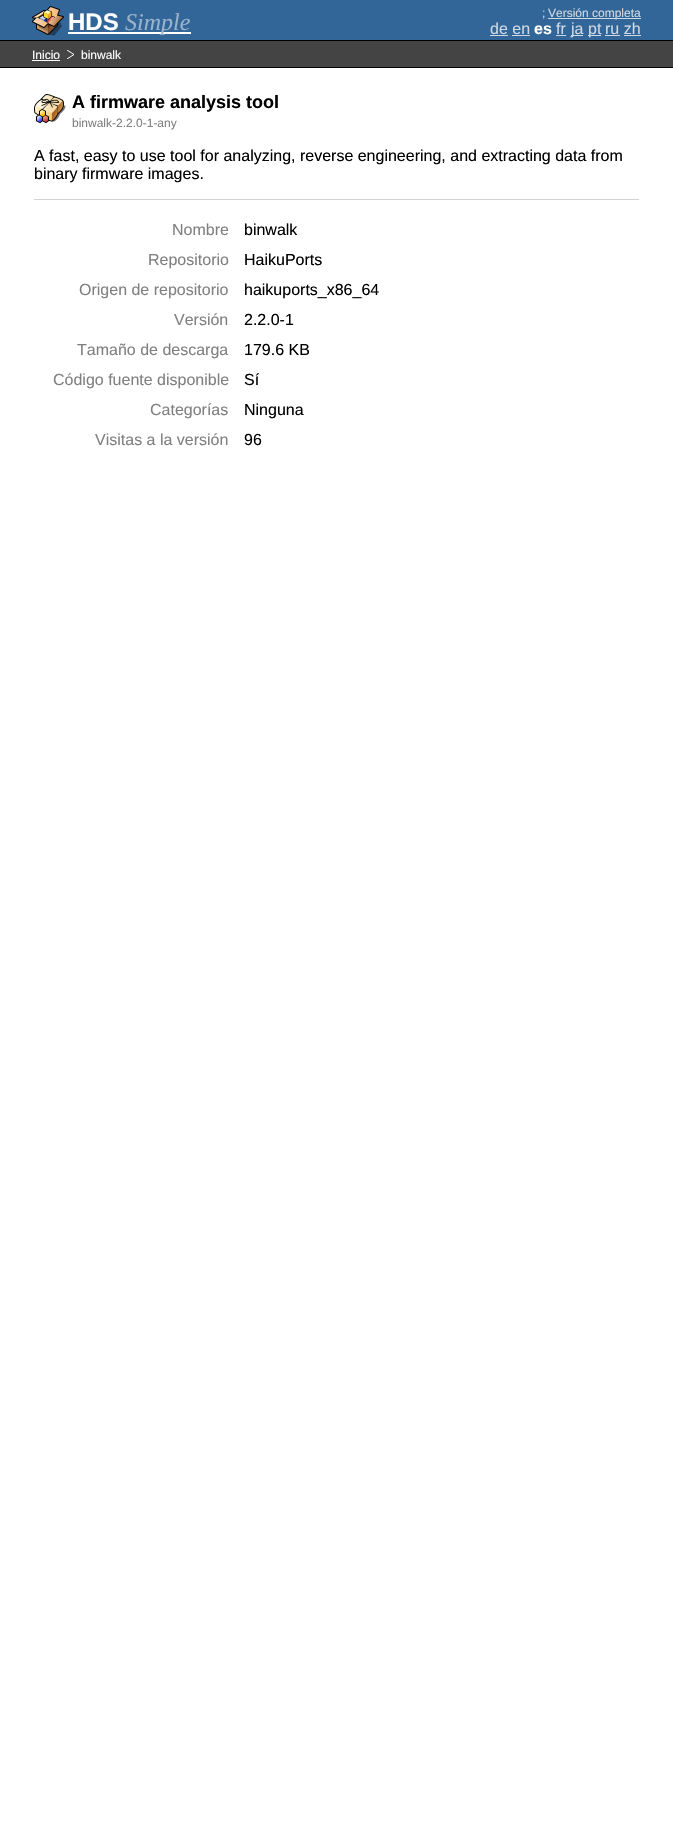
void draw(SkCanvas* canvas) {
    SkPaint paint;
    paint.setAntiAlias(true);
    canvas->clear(0xFFFFFFFF);
    paint.setColor(0xFF336698);
    canvas->drawRect(SkRect::MakeXYWH(0, 0, 673, 40), paint);
    paint.setColor(0xFF000000);
    canvas->drawRect(SkRect::MakeXYWH(0, 40, 673, 1), paint);
    canvas->drawImageRect(SkImages::DeferredFromEncodedData(SkData::MakeFromFileName("img1.png")), SkRect::MakeXYWH(32, 6, 32, 30), SkSamplingOptions());
    SkFont font1(fontMgr->matchFamilyStyle("Liberation Sans", SkFontStyle::Bold()), 24);
    font1.setSubpixel(true);
    paint.setColor(0xFFFFFFFF);
    canvas->drawString("HDS", 68, 30, font1, paint);
    canvas->drawRect(SkRect::MakeXYWH(68, 32, 123, 2), paint);
    SkFont font2(fontMgr->matchFamilyStyle("Liberation Serif", SkFontStyle::Italic()), 24);
    font2.setSubpixel(true);
    paint.setColor(0xFF9AB3CC);
    canvas->drawString("Simple", 125, 30, font2, paint);
    SkFont font3(fontMgr->matchFamilyStyle("Liberation Sans", SkFontStyle::Normal()), 12);
    font3.setSubpixel(true);
    paint.setColor(0xFFCCD9E5);
    canvas->drawString(";", 542, 17, font3, paint);
    canvas->drawRect(SkRect::MakeXYWH(548, 18, 93, 1), paint);
    canvas->drawString("Versión completa", 548, 17, font3, paint);
    SkFont font4(fontMgr->matchFamilyStyle("Liberation Sans", SkFontStyle::Normal()), 16);
    font4.setSubpixel(true);
    canvas->drawString("de en", 490, 34, font4, paint);
    canvas->drawRect(SkRect::MakeXYWH(490, 35, 18, 1), paint);
    canvas->drawRect(SkRect::MakeXYWH(512, 35, 18, 1), paint);
    SkFont font5(fontMgr->matchFamilyStyle("Liberation Sans", SkFontStyle::Bold()), 16);
    font5.setSubpixel(true);
    paint.setColor(0xFFFFFFFF);
    canvas->drawString("es", 534, 34, font5, paint);
    paint.setColor(0xFFCCD9E5);
    canvas->drawRect(SkRect::MakeXYWH(556, 35, 10, 1), paint);
    canvas->drawString("fr", 556, 34, font4, paint);
    canvas->drawRect(SkRect::MakeXYWH(571, 35, 12, 1), paint);
    canvas->drawString("ja", 571, 34, font4, paint);
    canvas->drawRect(SkRect::MakeXYWH(588, 35, 13, 1), paint);
    canvas->drawString("pt", 588, 34, font4, paint);
    canvas->drawRect(SkRect::MakeXYWH(605, 35, 15, 1), paint);
    canvas->drawString("ru zh", 605, 34, font4, paint);
    canvas->drawRect(SkRect::MakeXYWH(624, 35, 17, 1), paint);
    paint.setColor(0xFF444444);
    canvas->drawRect(SkRect::MakeXYWH(0, 41, 673, 26), paint);
    paint.setColor(0xFF000000);
    canvas->drawRect(SkRect::MakeXYWH(0, 67, 673, 1), paint);
    paint.setColor(0xFFFFFFFF);
    canvas->drawString("Inicio", 32, 59, font3, paint);
    canvas->drawRect(SkRect::MakeXYWH(32, 60, 28, 1), paint);
    canvas->drawString("binwalk", 81, 59, font3, paint);
    canvas->save();
    canvas->clipRect(SkRect::MakeXYWH(67, 50, 7, 9));
    paint.setStyle(SkPaint::kStroke_Style);
    paint.setStrokeWidth(1);
    canvas->drawPath(SkPathBuilder().moveTo(67, 59).lineTo(74, 54.5f).lineTo(67, 50).detach(), paint);
    canvas->restore();
    canvas->drawImageRect(SkImages::DeferredFromEncodedData(SkData::MakeFromFileName("img2.png")), SkRect::MakeXYWH(34, 94, 32, 30), SkSamplingOptions());
    SkFont font6(fontMgr->matchFamilyStyle("Liberation Sans", SkFontStyle::Bold()), 18);
    font6.setSubpixel(true);
    paint.setStyle(SkPaint::kFill_Style);
    paint.setColor(0xFF000000);
    canvas->drawString("A firmware analysis tool", 72, 108, font6, paint);
    paint.setColor(0xFF808080);
    canvas->drawString("binwalk-2.2.0-1-any", 72, 127, font3, paint);
    paint.setColor(0xFF000000);
    canvas->drawString("A fast, easy to use tool for analyzing, reverse engineering, and extracting data from", 34, 161, font4, paint);
    canvas->drawString("binary firmware images.", 34, 179, font4, paint);
    paint.setColor(0xFFD3D3D3);
    canvas->drawRect(SkRect::MakeXYWH(34, 199, 605, 1), paint);
    paint.setColor(0xFF808080);
    canvas->drawString("Nombre", 172, 235, font4, paint);
    paint.setColor(0xFF000000);
    canvas->drawString("binwalk", 244, 235, font4, paint);
    paint.setColor(0xFF808080);
    canvas->drawString("Repositorio", 148, 265, font4, paint);
    paint.setColor(0xFF000000);
    canvas->drawString("HaikuPorts", 244, 265, font4, paint);
    paint.setColor(0xFF808080);
    canvas->drawString("Origen de repositorio", 79, 295, font4, paint);
    paint.setColor(0xFF000000);
    canvas->drawString("haikuports_x86_64", 244, 295, font4, paint);
    paint.setColor(0xFF808080);
    canvas->drawString("Versión", 174, 325, font4, paint);
    paint.setColor(0xFF000000);
    canvas->drawString("2.2.0-1", 244, 325, font4, paint);
    paint.setColor(0xFF808080);
    canvas->drawString("Tamaño de descarga", 77, 355, font4, paint);
    paint.setColor(0xFF000000);
    canvas->drawString("179.6 KB", 244, 355, font4, paint);
    paint.setColor(0xFF808080);
    canvas->drawString("Código fuente disponible", 53, 385, font4, paint);
    paint.setColor(0xFF000000);
    canvas->drawString("Sí", 244, 385, font4, paint);
    paint.setColor(0xFF808080);
    canvas->drawString("Categorías", 150, 415, font4, paint);
    paint.setColor(0xFF000000);
    canvas->drawString("Ninguna", 244, 415, font4, paint);
    paint.setColor(0xFF808080);
    canvas->drawString("Visitas a la versión", 95, 445, font4, paint);
    paint.setColor(0xFF000000);
    canvas->drawString("96", 244, 445, font4, paint);
}
